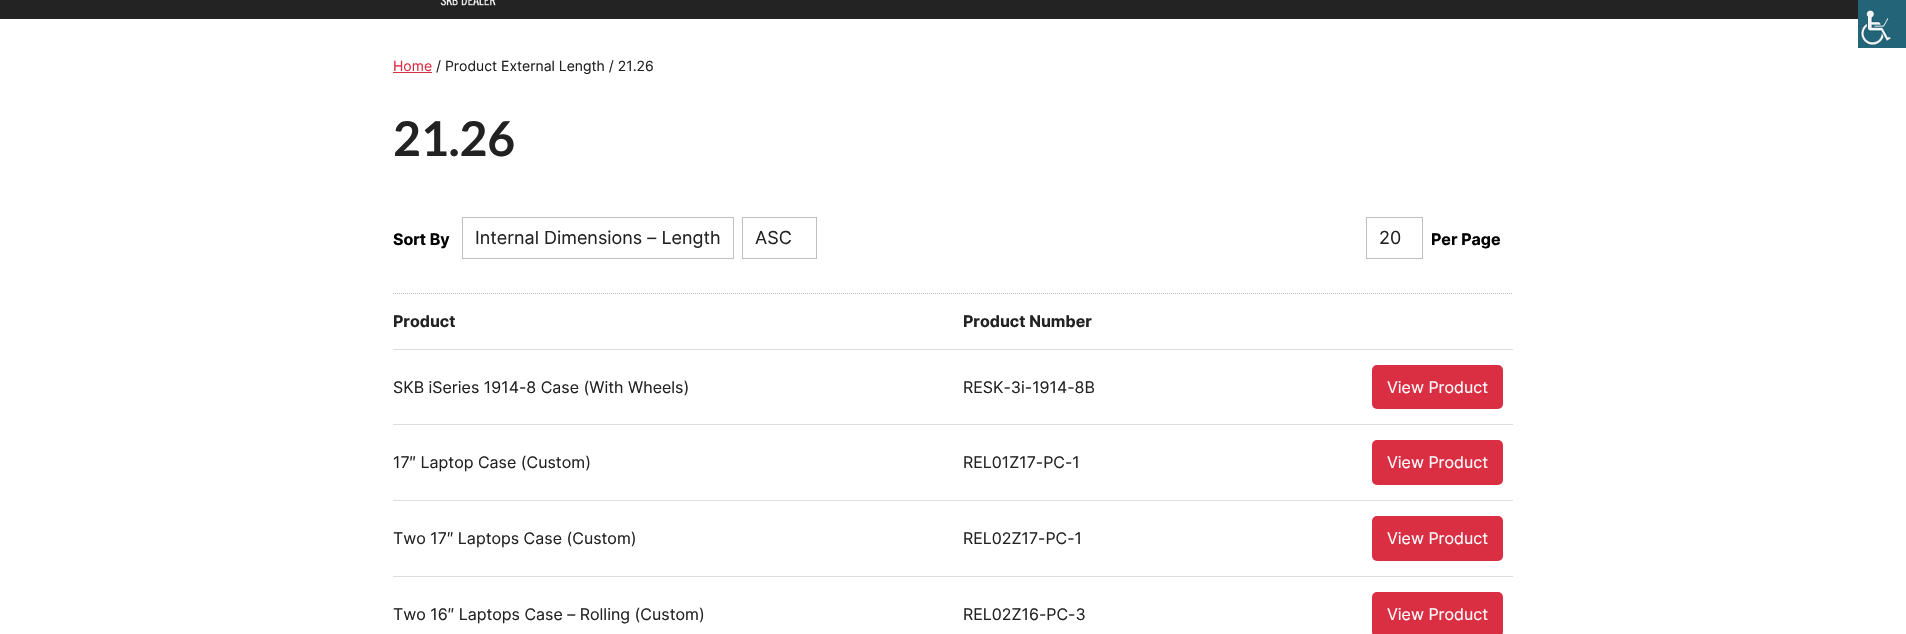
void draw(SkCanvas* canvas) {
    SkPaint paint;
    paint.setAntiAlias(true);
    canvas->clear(0xFFFFFFFF);
    canvas->drawImageRect(SkImages::DeferredFromEncodedData(SkData::MakeFromFileName("img1.png")), SkRect::MakeXYWH(1858, 0, 48, 48), SkSamplingOptions());
    paint.setColor(0xFF232323);
    canvas->drawRect(SkRect::MakeXYWH(0, 0, 1858, 19), paint);
    canvas->drawImageRect(SkImages::DeferredFromEncodedData(SkData::MakeFromFileName("img2.png")), SkRect::MakeXYWH(440, 0, 56, 6), SkSamplingOptions());
    SkFont font1(fontMgr->matchFamilyStyle("Inter", SkFontStyle::Normal()), 14);
    font1.setSubpixel(true);
    paint.setColor(0xFFDA2E43);
    canvas->drawString("Home", 393, 71, font1, paint);
    canvas->drawRect(SkRect::MakeXYWH(393, 72, 39, 1), paint);
    paint.setColor(0xFF222222);
    canvas->drawString("/ Product External Length / 21.26", 436, 71, font1, paint);
    SkFont font2(fontMgr->matchFamilyStyle("Lato", SkFontStyle::Bold()), 48);
    font2.setSubpixel(true);
    canvas->drawString("21.26", 393, 156, font2, paint);
    paint.setStyle(SkPaint::kStroke_Style);
    paint.setStrokeWidth(1);
    paint.setColor(0xFFC0C0C0);
    paint.setPathEffect(SkDashPathEffect::Make({{1, 1}}, 0));
    canvas->drawPath(SkPathBuilder().moveTo(393, 293.5f).lineTo(1513, 293.5f).detach(), paint);
    paint.setPathEffect(nullptr);
    SkFont font3(fontMgr->matchFamilyStyle("Inter", SkFontStyle::Bold()), 16);
    font3.setSubpixel(true);
    paint.setStyle(SkPaint::kFill_Style);
    paint.setColor(0xFF000000);
    canvas->drawString("Sort By", 393, 245, font3, paint);
    paint.setStyle(SkPaint::kStroke_Style);
    paint.setColor(0xFFBFBFBF);
    canvas->drawRect(SkRect::MakeXYWH(462.5f, 217.5f, 271, 41), paint);
    SkFont font4(fontMgr->matchFamilyStyle("Inter", SkFontStyle::Normal()), 18);
    font4.setSubpixel(true);
    paint.setStyle(SkPaint::kFill_Style);
    paint.setColor(0xFF222222);
    canvas->drawString("Internal Dimensions – Length", 475, 244, font4, paint);
    paint.setStyle(SkPaint::kStroke_Style);
    paint.setColor(0xFFBFBFBF);
    canvas->drawRect(SkRect::MakeXYWH(742.5f, 217.5f, 74, 41), paint);
    paint.setStyle(SkPaint::kFill_Style);
    paint.setColor(0xFF222222);
    canvas->drawString("ASC", 755, 244, font4, paint);
    paint.setStyle(SkPaint::kStroke_Style);
    paint.setColor(0xFFBFBFBF);
    canvas->drawRect(SkRect::MakeXYWH(1366.5f, 217.5f, 56, 41), paint);
    paint.setStyle(SkPaint::kFill_Style);
    paint.setColor(0xFF222222);
    canvas->drawString("20", 1379, 244, font4, paint);
    paint.setColor(0xFF000000);
    canvas->drawString("Per Page", 1431, 245, font3, paint);
    paint.setColor(0xFFDDDDDD);
    canvas->drawRect(SkRect::MakeXYWH(393, 349, 1120, 1), paint);
    paint.setColor(0xFF222222);
    canvas->drawString("Product", 393, 327, font3, paint);
    canvas->drawString("Product Number", 963, 327, font3, paint);
    paint.setColor(0xFFDDDDDD);
    canvas->drawRect(SkRect::MakeXYWH(393, 424, 1120, 1), paint);
    SkFont font5(fontMgr->matchFamilyStyle("Inter", SkFontStyle::Normal()), 16);
    font5.setSubpixel(true);
    paint.setColor(0xFF222222);
    canvas->drawString("SKB iSeries 1914-8 Case (With Wheels)", 393, 393, font5, paint);
    canvas->drawString("RESK-3i-1914-8B", 963, 393, font5, paint);
    paint.setColor(0xFFDA2E43);
    canvas->drawRoundRect(SkRect::MakeXYWH(1372, 365, 131, 44), 5, 5, paint);
    paint.setColor(0xFFFFFFFF);
    canvas->drawString("View Product", 1387, 393, font5, paint);
    paint.setColor(0xFFDDDDDD);
    canvas->drawRect(SkRect::MakeXYWH(393, 500, 1120, 1), paint);
    paint.setColor(0xFF222222);
    canvas->drawString("17″ Laptop Case (Custom)", 393, 468, font5, paint);
    canvas->drawString("REL01Z17-PC-1", 963, 468, font5, paint);
    paint.setColor(0xFFDA2E43);
    canvas->drawRoundRect(SkRect::MakeXYWH(1372, 440, 131, 45), 5, 5, paint);
    paint.setColor(0xFFFFFFFF);
    canvas->drawString("View Product", 1387, 468, font5, paint);
    paint.setColor(0xFFDDDDDD);
    canvas->drawRect(SkRect::MakeXYWH(393, 576, 1120, 1), paint);
    paint.setColor(0xFF222222);
    canvas->drawString("Two 17″ Laptops Case (Custom)", 393, 544, font5, paint);
    canvas->drawString("REL02Z17-PC-1", 963, 544, font5, paint);
    paint.setColor(0xFFDA2E43);
    canvas->drawRoundRect(SkRect::MakeXYWH(1372, 516, 131, 45), 5, 5, paint);
    paint.setColor(0xFFFFFFFF);
    canvas->drawString("View Product", 1387, 544, font5, paint);
    paint.setColor(0xFF222222);
    canvas->drawString("Two 16″ Laptops Case – Rolling (Custom)", 393, 620, font5, paint);
    canvas->drawString("REL02Z16-PC-3", 963, 620, font5, paint);
    paint.setColor(0xFFDA2E43);
    canvas->drawRoundRect(SkRect::MakeXYWH(1372, 592, 131, 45), 5, 5, paint);
    paint.setColor(0xFFFFFFFF);
    canvas->drawString("View Product", 1387, 620, font5, paint);
}
